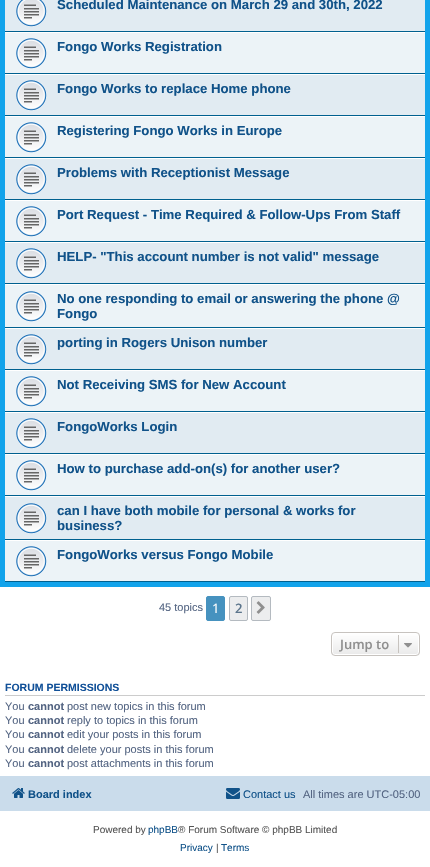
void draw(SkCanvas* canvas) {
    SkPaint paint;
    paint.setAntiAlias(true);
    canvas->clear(0xFFFFFFFF);
    {
        const SkColor colors[] = {0xFF6ACEFF, 0xFF0076B1, 0xFF12A3EB, 0xFF12A3EB};
        const float stops[] = {0, 0, 0.08f, 1};
        const SkPoint ends[] = {{215, -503}, {215, 587}};
        paint.setShader(SkGradientShader::MakeLinear(ends, colors, stops, 4, SkTileMode::kClamp));
        paint.setAlpha(255);
    }
    canvas->drawRect(SkRect::MakeXYWH(0, 0, 430, 587), paint);
    paint.setShader(nullptr);
    paint.setColor(0xFFE1EBF2);
    canvas->drawRect(SkRect::MakeXYWH(5, 0, 420, 31), paint);
    paint.setColor(0xFF00608F);
    canvas->drawRect(SkRect::MakeXYWH(5, 31, 420, 1), paint);
    canvas->drawImageRect(SkImages::DeferredFromEncodedData(SkData::MakeFromFileName("img1.png")), SkRect::MakeXYWH(16, 0, 31, 27), SkSamplingOptions());
    SkFont font1(fontMgr->matchFamilyStyle("Liberation Sans", SkFontStyle::Bold()), 13.2f);
    font1.setSubpixel(true);
    paint.setColor(0xFF105289);
    canvas->drawString("Scheduled Maintenance on March 29 and 30th, 2022", 57, 9, font1, paint);
    paint.setColor(0xFFECF3F7);
    canvas->drawRect(SkRect::MakeXYWH(5, 33, 420, 40), paint);
    paint.setColor(0xFFFFFFFF);
    canvas->drawRect(SkRect::MakeXYWH(5, 32, 420, 1), paint);
    paint.setColor(0xFF00608F);
    canvas->drawRect(SkRect::MakeXYWH(5, 73, 420, 1), paint);
    canvas->drawImageRect(SkImages::DeferredFromEncodedData(SkData::MakeFromFileName("img2.png")), SkRect::MakeXYWH(16, 38, 31, 31), SkSamplingOptions());
    paint.setColor(0xFF105289);
    canvas->drawString("Fongo Works Registration", 57, 51, font1, paint);
    paint.setColor(0xFFE1EBF2);
    canvas->drawRect(SkRect::MakeXYWH(5, 75, 420, 40), paint);
    paint.setColor(0xFFFFFFFF);
    canvas->drawRect(SkRect::MakeXYWH(5, 74, 420, 1), paint);
    paint.setColor(0xFF00608F);
    canvas->drawRect(SkRect::MakeXYWH(5, 115, 420, 1), paint);
    canvas->drawImageRect(SkImages::DeferredFromEncodedData(SkData::MakeFromFileName("img3.png")), SkRect::MakeXYWH(16, 80, 31, 31), SkSamplingOptions());
    paint.setColor(0xFF105289);
    canvas->drawString("Fongo Works to replace Home phone", 57, 93, font1, paint);
    paint.setColor(0xFFECF3F7);
    canvas->drawRect(SkRect::MakeXYWH(5, 117, 420, 40), paint);
    paint.setColor(0xFFFFFFFF);
    canvas->drawRect(SkRect::MakeXYWH(5, 116, 420, 1), paint);
    paint.setColor(0xFF00608F);
    canvas->drawRect(SkRect::MakeXYWH(5, 157, 420, 1), paint);
    canvas->drawImageRect(SkImages::DeferredFromEncodedData(SkData::MakeFromFileName("img2.png")), SkRect::MakeXYWH(16, 122, 31, 31), SkSamplingOptions());
    paint.setColor(0xFF105289);
    canvas->drawString("Registering Fongo Works in Europe", 57, 135, font1, paint);
    paint.setColor(0xFFE1EBF2);
    canvas->drawRect(SkRect::MakeXYWH(5, 159, 420, 40), paint);
    paint.setColor(0xFFFFFFFF);
    canvas->drawRect(SkRect::MakeXYWH(5, 158, 420, 1), paint);
    paint.setColor(0xFF00608F);
    canvas->drawRect(SkRect::MakeXYWH(5, 199, 420, 1), paint);
    canvas->drawImageRect(SkImages::DeferredFromEncodedData(SkData::MakeFromFileName("img3.png")), SkRect::MakeXYWH(16, 164, 31, 31), SkSamplingOptions());
    paint.setColor(0xFF105289);
    canvas->drawString("Problems with Receptionist Message", 57, 177, font1, paint);
    paint.setColor(0xFFECF3F7);
    canvas->drawRect(SkRect::MakeXYWH(5, 201, 420, 40), paint);
    paint.setColor(0xFFFFFFFF);
    canvas->drawRect(SkRect::MakeXYWH(5, 200, 420, 1), paint);
    paint.setColor(0xFF00608F);
    canvas->drawRect(SkRect::MakeXYWH(5, 241, 420, 1), paint);
    canvas->drawImageRect(SkImages::DeferredFromEncodedData(SkData::MakeFromFileName("img2.png")), SkRect::MakeXYWH(16, 206, 31, 31), SkSamplingOptions());
    paint.setColor(0xFF105289);
    canvas->drawString("Port Request - Time Required & Follow-Ups From Staff", 57, 219, font1, paint);
    paint.setColor(0xFFE1EBF2);
    canvas->drawRect(SkRect::MakeXYWH(5, 243, 420, 40), paint);
    paint.setColor(0xFFFFFFFF);
    canvas->drawRect(SkRect::MakeXYWH(5, 242, 420, 1), paint);
    paint.setColor(0xFF00608F);
    canvas->drawRect(SkRect::MakeXYWH(5, 283, 420, 1), paint);
    canvas->drawImageRect(SkImages::DeferredFromEncodedData(SkData::MakeFromFileName("img3.png")), SkRect::MakeXYWH(16, 248, 31, 31), SkSamplingOptions());
    paint.setColor(0xFF105289);
    canvas->drawString("HELP- \"This account number is not valid\" message", 57, 261, font1, paint);
    paint.setColor(0xFFECF3F7);
    canvas->drawRect(SkRect::MakeXYWH(5, 285, 420, 42), paint);
    paint.setColor(0xFFFFFFFF);
    canvas->drawRect(SkRect::MakeXYWH(5, 284, 420, 1), paint);
    paint.setColor(0xFF00608F);
    canvas->drawRect(SkRect::MakeXYWH(5, 327, 420, 1), paint);
    canvas->drawImageRect(SkImages::DeferredFromEncodedData(SkData::MakeFromFileName("img2.png")), SkRect::MakeXYWH(16, 291, 31, 31), SkSamplingOptions());
    paint.setColor(0xFF105289);
    canvas->drawString("No one responding to email or answering the phone @", 57, 303, font1, paint);
    canvas->drawString("Fongo", 57, 318, font1, paint);
    paint.setColor(0xFFE1EBF2);
    canvas->drawRect(SkRect::MakeXYWH(5, 329, 420, 40), paint);
    paint.setColor(0xFFFFFFFF);
    canvas->drawRect(SkRect::MakeXYWH(5, 328, 420, 1), paint);
    paint.setColor(0xFF00608F);
    canvas->drawRect(SkRect::MakeXYWH(5, 369, 420, 1), paint);
    canvas->drawImageRect(SkImages::DeferredFromEncodedData(SkData::MakeFromFileName("img3.png")), SkRect::MakeXYWH(16, 334, 31, 31), SkSamplingOptions());
    paint.setColor(0xFF105289);
    canvas->drawString("porting in Rogers Unison number", 57, 347, font1, paint);
    paint.setColor(0xFFECF3F7);
    canvas->drawRect(SkRect::MakeXYWH(5, 371, 420, 40), paint);
    paint.setColor(0xFFFFFFFF);
    canvas->drawRect(SkRect::MakeXYWH(5, 370, 420, 1), paint);
    paint.setColor(0xFF00608F);
    canvas->drawRect(SkRect::MakeXYWH(5, 411, 420, 1), paint);
    canvas->drawImageRect(SkImages::DeferredFromEncodedData(SkData::MakeFromFileName("img2.png")), SkRect::MakeXYWH(16, 376, 31, 31), SkSamplingOptions());
    paint.setColor(0xFF105289);
    canvas->drawString("Not Receiving SMS for New Account", 57, 389, font1, paint);
    paint.setColor(0xFFE1EBF2);
    canvas->drawRect(SkRect::MakeXYWH(5, 413, 420, 40), paint);
    paint.setColor(0xFFFFFFFF);
    canvas->drawRect(SkRect::MakeXYWH(5, 412, 420, 1), paint);
    paint.setColor(0xFF00608F);
    canvas->drawRect(SkRect::MakeXYWH(5, 453, 420, 1), paint);
    canvas->drawImageRect(SkImages::DeferredFromEncodedData(SkData::MakeFromFileName("img3.png")), SkRect::MakeXYWH(16, 418, 31, 31), SkSamplingOptions());
    paint.setColor(0xFF105289);
    canvas->drawString("FongoWorks Login", 57, 431, font1, paint);
    paint.setColor(0xFFECF3F7);
    canvas->drawRect(SkRect::MakeXYWH(5, 455, 420, 40), paint);
    paint.setColor(0xFFFFFFFF);
    canvas->drawRect(SkRect::MakeXYWH(5, 454, 420, 1), paint);
    paint.setColor(0xFF00608F);
    canvas->drawRect(SkRect::MakeXYWH(5, 495, 420, 1), paint);
    canvas->drawImageRect(SkImages::DeferredFromEncodedData(SkData::MakeFromFileName("img2.png")), SkRect::MakeXYWH(16, 460, 31, 31), SkSamplingOptions());
    paint.setColor(0xFF105289);
    canvas->drawString("How to purchase add-on(s) for another user?", 57, 473, font1, paint);
    paint.setColor(0xFFE1EBF2);
    canvas->drawRect(SkRect::MakeXYWH(5, 497, 420, 42), paint);
    paint.setColor(0xFFFFFFFF);
    canvas->drawRect(SkRect::MakeXYWH(5, 496, 420, 1), paint);
    paint.setColor(0xFF00608F);
    canvas->drawRect(SkRect::MakeXYWH(5, 539, 420, 1), paint);
    canvas->drawImageRect(SkImages::DeferredFromEncodedData(SkData::MakeFromFileName("img3.png")), SkRect::MakeXYWH(16, 503, 31, 31), SkSamplingOptions());
    paint.setColor(0xFF105289);
    canvas->drawString("can I have both mobile for personal & works for", 57, 515, font1, paint);
    canvas->drawString("business?", 57, 530, font1, paint);
    paint.setColor(0xFFECF3F7);
    canvas->drawRect(SkRect::MakeXYWH(5, 541, 420, 40), paint);
    paint.setColor(0xFFFFFFFF);
    canvas->drawRect(SkRect::MakeXYWH(5, 540, 420, 1), paint);
    paint.setColor(0xFF00608F);
    canvas->drawRect(SkRect::MakeXYWH(5, 581, 420, 1), paint);
    canvas->drawImageRect(SkImages::DeferredFromEncodedData(SkData::MakeFromFileName("img2.png")), SkRect::MakeXYWH(16, 546, 31, 31), SkSamplingOptions());
    paint.setColor(0xFF105289);
    canvas->drawString("FongoWorks versus Fongo Mobile", 57, 559, font1, paint);
    SkFont font2(fontMgr->matchFamilyStyle("Liberation Sans", SkFontStyle::Normal()), 11);
    font2.setSubpixel(true);
    paint.setColor(0xFF536482);
    canvas->drawString("45 topics", 159, 611, font2, paint);
    paint.setColor(0xFF4692BF);
    canvas->drawRoundRect(SkRect::MakeXYWH(206.5f, 596.5f, 18, 24), 1.5f, 1.5f, paint);
    paint.setStyle(SkPaint::kStroke_Style);
    paint.setStrokeWidth(1);
    canvas->drawRoundRect(SkRect::MakeXYWH(206.5f, 596.5f, 18, 24), 1.5f, 1.5f, paint);
    SkFont font3(fontMgr->matchFamilyStyle("Open Sans", SkFontStyle::Normal()), 13);
    font3.setSubpixel(true);
    paint.setStyle(SkPaint::kFill_Style);
    paint.setColor(0xFFFFFFFF);
    canvas->drawString("1", 212, 613, font3, paint);
    paint.setColor(0xFFECEDEE);
    canvas->drawRoundRect(SkRect::MakeXYWH(229.5f, 596.5f, 18, 24), 1.5f, 1.5f, paint);
    paint.setStyle(SkPaint::kStroke_Style);
    paint.setColor(0xFFB4BAC0);
    canvas->drawRoundRect(SkRect::MakeXYWH(229.5f, 596.5f, 18, 24), 1.5f, 1.5f, paint);
    SkFont font4(fontMgr->matchFamilyStyle("Open Sans", SkFontStyle(600, SkFontStyle::kNormal_Width, SkFontStyle::kUpright_Slant)), 13);
    font4.setSubpixel(true);
    paint.setStyle(SkPaint::kFill_Style);
    paint.setColor(0xFF5C758C);
    canvas->drawString("2", 235, 613, font4, paint);
    paint.setColor(0xFFECEDEE);
    canvas->drawRoundRect(SkRect::MakeXYWH(251.5f, 596.5f, 19, 24), 1.5f, 1.5f, paint);
    paint.setStyle(SkPaint::kStroke_Style);
    paint.setColor(0xFFB4BAC0);
    canvas->drawRoundRect(SkRect::MakeXYWH(251.5f, 596.5f, 19, 24), 1.5f, 1.5f, paint);
    canvas->drawImageRect(SkImages::DeferredFromEncodedData(SkData::MakeFromFileName("img4.png")), SkRect::MakeXYWH(256, 601, 9, 13), SkSamplingOptions());
    canvas->save();
    canvas->clipPath(SkPathBuilder().moveTo(335, 632).lineTo(416, 632).cubicTo(418, 632, 420, 634, 420, 636).lineTo(420, 652).cubicTo(420, 654, 418, 656, 416, 656).lineTo(335, 656).cubicTo(333, 656, 331, 654, 331, 652).lineTo(331, 636).cubicTo(331, 634, 333, 632, 335, 632).close().detach(), true);
    paint.setStyle(SkPaint::kFill_Style);
    {
        const SkColor colors[] = {0xFFFFFFFF, 0xFFE9E9E9};
        const float stops[] = {0, 1};
        const SkPoint ends[] = {{376, 633}, {376, 655}};
        paint.setShader(SkGradientShader::MakeLinear(ends, colors, stops, 2, SkTileMode::kClamp));
        paint.setAlpha(255);
    }
    canvas->drawRect(SkRect::MakeXYWH(331, 633, 89, 22), paint);
    canvas->restore();
    paint.setStyle(SkPaint::kStroke_Style);
    paint.setShader(nullptr);
    paint.setColor(0xFFFFFFFF);
    canvas->drawRoundRect(SkRect::MakeXYWH(332.5f, 633.5f, 86, 21), 2.5f, 2.5f, paint);
    paint.setColor(0xFFC7C3BF);
    canvas->drawRoundRect(SkRect::MakeXYWH(331.5f, 632.5f, 88, 23), 3.5f, 3.5f, paint);
    paint.setStyle(SkPaint::kFill_Style);
    paint.setColor(0xFF8F8F8F);
    canvas->drawString("Jump to", 340, 649, font4, paint);
    paint.setColor(0xFFC7C3BF);
    canvas->drawRect(SkRect::MakeXYWH(398, 635, 1, 18), paint);
    canvas->drawImageRect(SkImages::DeferredFromEncodedData(SkData::MakeFromFileName("img5.png")), SkRect::MakeXYWH(404, 643, 8, 5), SkSamplingOptions());
    paint.setColor(0xFFCCCCCC);
    canvas->drawRect(SkRect::MakeXYWH(5, 695, 420, 1), paint);
    SkFont font5(fontMgr->matchFamilyStyle("Liberation Sans", SkFontStyle::Bold()), 10.5f);
    font5.setSubpixel(true);
    paint.setColor(0xFF115098);
    canvas->drawString("FORUM PERMISSIONS", 5, 691, font5, paint);
    paint.setColor(0xFF536482);
    canvas->drawString("You", 5, 710, font2, paint);
    SkFont font6(fontMgr->matchFamilyStyle("Liberation Sans", SkFontStyle::Bold()), 11);
    font6.setSubpixel(true);
    canvas->drawString("cannot", 28, 710, font6, paint);
    canvas->drawString("post new topics in this forum", 67, 710, font2, paint);
    canvas->drawString("You", 5, 724, font2, paint);
    canvas->drawString("cannot", 28, 724, font6, paint);
    canvas->drawString("reply to topics in this forum", 67, 724, font2, paint);
    canvas->drawString("You", 5, 738, font2, paint);
    canvas->drawString("cannot", 28, 738, font6, paint);
    canvas->drawString("edit your posts in this forum", 67, 738, font2, paint);
    canvas->drawString("You", 5, 753, font2, paint);
    canvas->drawString("cannot", 28, 753, font6, paint);
    canvas->drawString("delete your posts in this forum", 67, 753, font2, paint);
    canvas->drawString("You", 5, 767, font2, paint);
    canvas->drawString("cannot", 28, 767, font6, paint);
    canvas->drawString("post attachments in this forum", 67, 767, font2, paint);
    paint.setColor(0xFFCADCEB);
    canvas->drawRect(SkRect::MakeXYWH(0, 776, 430, 35), paint);
    canvas->drawImageRect(SkImages::DeferredFromEncodedData(SkData::MakeFromFileName("img6.png")), SkRect::MakeXYWH(12, 788, 13, 10), SkSamplingOptions());
    paint.setColor(0xFF105289);
    canvas->drawString("Board index", 28, 798, font6, paint);
    canvas->drawImageRect(SkImages::DeferredFromEncodedData(SkData::MakeFromFileName("img7.png")), SkRect::MakeXYWH(226, 788, 14, 11), SkSamplingOptions());
    canvas->drawString("Contact us", 243, 798, font2, paint);
    paint.setColor(0xFF536482);
    canvas->drawString("All times are UTC-05:00", 303, 798, font2, paint);
    SkFont font7(fontMgr->matchFamilyStyle("Liberation Sans", SkFontStyle::Normal()), 10);
    font7.setSubpixel(true);
    paint.setColor(0xFF555555);
    canvas->drawString("Powered by", 93, 833, font7, paint);
    paint.setColor(0xFF105289);
    canvas->drawString("phpBB", 148, 833, font7, paint);
    paint.setColor(0xFF555555);
    canvas->drawString("® Forum Software © phpBB Limited", 178, 833, font7, paint);
    paint.setColor(0xFF105289);
    canvas->drawString("Privacy", 180, 851, font7, paint);
    paint.setColor(0xFF555555);
    canvas->drawString("|", 216, 851, font7, paint);
    paint.setColor(0xFF105289);
    canvas->drawString("Terms", 221, 851, font7, paint);
}
